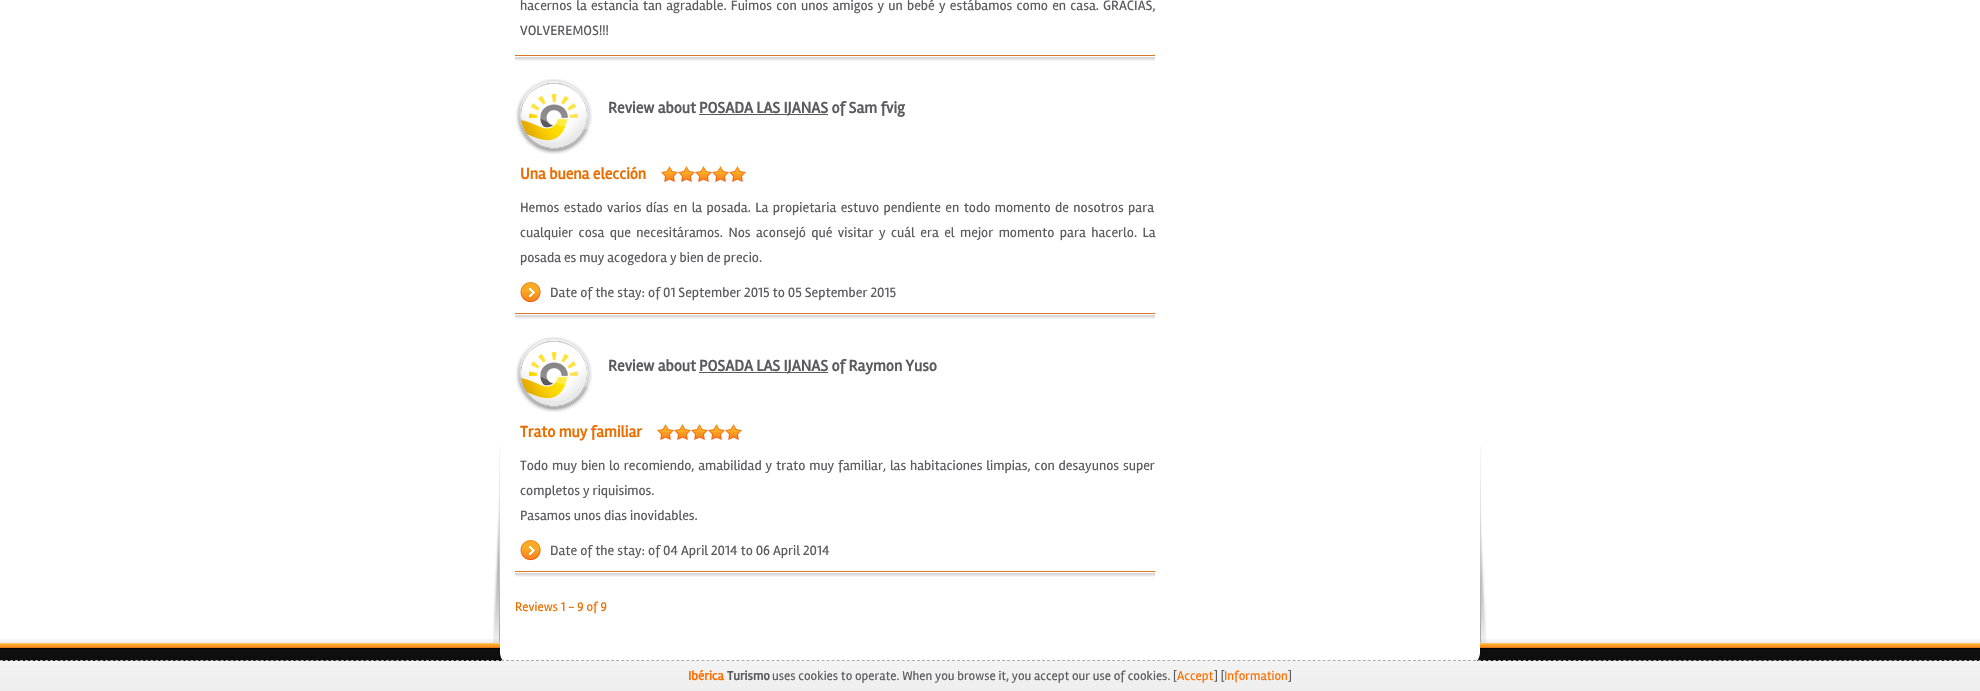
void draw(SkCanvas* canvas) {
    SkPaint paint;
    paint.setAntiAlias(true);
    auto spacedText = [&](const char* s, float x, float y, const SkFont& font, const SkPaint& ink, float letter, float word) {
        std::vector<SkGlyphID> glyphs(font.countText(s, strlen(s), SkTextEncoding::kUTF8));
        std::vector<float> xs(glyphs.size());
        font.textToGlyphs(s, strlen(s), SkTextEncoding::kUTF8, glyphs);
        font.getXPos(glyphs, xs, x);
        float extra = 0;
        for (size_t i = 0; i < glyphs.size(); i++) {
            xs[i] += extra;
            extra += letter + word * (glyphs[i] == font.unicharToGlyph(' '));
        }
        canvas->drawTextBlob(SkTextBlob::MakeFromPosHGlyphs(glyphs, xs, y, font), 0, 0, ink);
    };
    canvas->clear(0xFFFFFFFF);
    canvas->drawImageRect(SkImages::DeferredFromEncodedData(SkData::MakeFromFileName("img1.png")), SkRect::MakeXYWH(493, 446, 994, 197), SkSamplingOptions());
    SkFont font1(fontMgr->matchFamilyStyle("Rambla", SkFontStyle::Normal()), 14);
    font1.setSubpixel(true);
    paint.setColor(0xFF5B5A5D);
    spacedText("hacernos la estancia tan agradable. Fuimos con unos amigos y un bebé y estábamos como en casa. GRACIAS,", 520, 10, font1, paint, 0, 1.25f);
    canvas->drawString("VOLVEREMOS!!!", 520, 35, font1, paint);
    canvas->drawImageRect(SkImages::DeferredFromEncodedData(SkData::MakeFromFileName("img2.png")), SkRect::MakeXYWH(515, 55, 640, 6), SkSamplingOptions());
    canvas->drawImageRect(SkImages::DeferredFromEncodedData(SkData::MakeFromFileName("img3.png")), SkRect::MakeXYWH(516, 79, 76, 75), SkSamplingOptions());
    canvas->drawImageRect(SkImages::DeferredFromEncodedData(SkData::MakeFromFileName("img4.png")), SkRect::MakeXYWH(520, 82, 71, 67), SkSamplingOptions());
    SkFont font2(fontMgr->matchFamilyStyle("Rambla", SkFontStyle::Bold()), 16);
    font2.setSubpixel(true);
    canvas->drawString("Review about", 608, 113, font2, paint);
    canvas->drawRect(SkRect::MakeXYWH(699, 114, 129, 1), paint);
    canvas->drawString("POSADA LAS IJANAS of Sam fvig", 699, 113, font2, paint);
    paint.setColor(0xFFEC6E00);
    canvas->drawString("Una buena elección", 520, 179, font2, paint);
    canvas->drawImageRect(SkImages::DeferredFromEncodedData(SkData::MakeFromFileName("img5.png")), SkRect::MakeXYWH(661, 166, 17, 16), SkSamplingOptions());
    canvas->drawImageRect(SkImages::DeferredFromEncodedData(SkData::MakeFromFileName("img5.png")), SkRect::MakeXYWH(678, 166, 17, 16), SkSamplingOptions());
    canvas->drawImageRect(SkImages::DeferredFromEncodedData(SkData::MakeFromFileName("img5.png")), SkRect::MakeXYWH(695, 166, 17, 16), SkSamplingOptions());
    canvas->drawImageRect(SkImages::DeferredFromEncodedData(SkData::MakeFromFileName("img5.png")), SkRect::MakeXYWH(712, 166, 17, 16), SkSamplingOptions());
    canvas->drawImageRect(SkImages::DeferredFromEncodedData(SkData::MakeFromFileName("img5.png")), SkRect::MakeXYWH(729, 166, 17, 16), SkSamplingOptions());
    paint.setColor(0xFF5B5A5D);
    spacedText("Hemos estado varios días en la posada. La propietaria estuvo pendiente en todo momento de nosotros para", 520, 212, font1, paint, 0, 1.5f);
    spacedText("cualquier cosa que necesitáramos. Nos aconsejó qué visitar y cuál era el mejor momento para hacerlo. La", 520, 237, font1, paint, 0, 2.5f);
    canvas->drawString("posada es muy acogedora y bien de precio.", 520, 262, font1, paint);
    canvas->drawImageRect(SkImages::DeferredFromEncodedData(SkData::MakeFromFileName("img6.png")), SkRect::MakeXYWH(520, 282, 21, 21), SkSamplingOptions());
    canvas->drawString("Date of the stay: of 01 September 2015 to 05 September 2015", 550, 297, font1, paint);
    canvas->drawImageRect(SkImages::DeferredFromEncodedData(SkData::MakeFromFileName("img2.png")), SkRect::MakeXYWH(515, 313, 640, 6), SkSamplingOptions());
    canvas->drawImageRect(SkImages::DeferredFromEncodedData(SkData::MakeFromFileName("img3.png")), SkRect::MakeXYWH(516, 337, 76, 75), SkSamplingOptions());
    canvas->drawImageRect(SkImages::DeferredFromEncodedData(SkData::MakeFromFileName("img4.png")), SkRect::MakeXYWH(520, 340, 71, 67), SkSamplingOptions());
    canvas->drawString("Review about", 608, 371, font2, paint);
    canvas->drawRect(SkRect::MakeXYWH(699, 372, 129, 1), paint);
    canvas->drawString("POSADA LAS IJANAS of Raymon Yuso", 699, 371, font2, paint);
    paint.setColor(0xFFEC6E00);
    canvas->drawString("Trato muy familiar", 520, 437, font2, paint);
    canvas->drawImageRect(SkImages::DeferredFromEncodedData(SkData::MakeFromFileName("img5.png")), SkRect::MakeXYWH(657, 424, 17, 16), SkSamplingOptions());
    canvas->drawImageRect(SkImages::DeferredFromEncodedData(SkData::MakeFromFileName("img5.png")), SkRect::MakeXYWH(674, 424, 17, 16), SkSamplingOptions());
    canvas->drawImageRect(SkImages::DeferredFromEncodedData(SkData::MakeFromFileName("img5.png")), SkRect::MakeXYWH(691, 424, 17, 16), SkSamplingOptions());
    canvas->drawImageRect(SkImages::DeferredFromEncodedData(SkData::MakeFromFileName("img5.png")), SkRect::MakeXYWH(708, 424, 17, 16), SkSamplingOptions());
    canvas->drawImageRect(SkImages::DeferredFromEncodedData(SkData::MakeFromFileName("img5.png")), SkRect::MakeXYWH(725, 424, 17, 16), SkSamplingOptions());
    paint.setColor(0xFF5B5A5D);
    spacedText("Todo muy bien lo recomiendo, amabilidad y trato muy familiar, las habitaciones limpias, con desayunos super", 520, 470, font1, paint, 0, 0.9f);
    canvas->drawString("completos y riquisimos.", 520, 495, font1, paint);
    canvas->drawString("Pasamos unos dias inovidables.", 520, 520, font1, paint);
    canvas->drawImageRect(SkImages::DeferredFromEncodedData(SkData::MakeFromFileName("img6.png")), SkRect::MakeXYWH(520, 540, 21, 21), SkSamplingOptions());
    canvas->drawString("Date of the stay: of 04 April 2014 to 06 April 2014", 550, 555, font1, paint);
    canvas->drawImageRect(SkImages::DeferredFromEncodedData(SkData::MakeFromFileName("img2.png")), SkRect::MakeXYWH(515, 571, 640, 6), SkSamplingOptions());
    SkFont font3(fontMgr->matchFamilyStyle("Rambla", SkFontStyle::Normal()), 13);
    font3.setSubpixel(true);
    paint.setColor(0xFFEC6E00);
    canvas->drawString("Reviews 1 - 9 of 9", 515, 611, font3, paint);
    canvas->drawImageRect(SkImages::DeferredFromEncodedData(SkData::MakeFromFileName("img8.png")), SkRect::MakeXYWH(0, 639, 1980, 22), SkSamplingOptions());
    canvas->drawImageRect(SkImages::DeferredFromEncodedData(SkData::MakeFromFileName("img7.png")), SkRect::MakeXYWH(500, 638, 980, 23), SkSamplingOptions());
    canvas->drawImageRect(SkImages::DeferredFromEncodedData(SkData::MakeFromFileName("img9.png")), SkRect::MakeXYWH(0, 661, 1980, 30), SkSamplingOptions());
    paint.setStyle(SkPaint::kStroke_Style);
    paint.setStrokeWidth(1);
    paint.setColor(0xFFACACAC);
    paint.setPathEffect(SkDashPathEffect::Make({{3, 2.01f}}, 0));
    canvas->drawPath(SkPathBuilder().moveTo(0, 660.5f).lineTo(1980, 660.5f).detach(), paint);
    paint.setPathEffect(nullptr);
    SkFont font4(fontMgr->matchFamilyStyle("Rambla", SkFontStyle::Bold()), 13);
    font4.setSubpixel(true);
    paint.setStyle(SkPaint::kFill_Style);
    paint.setColor(0xFFFF6E00);
    canvas->drawString("Ibérica", 688, 680, font4, paint);
    paint.setColor(0xFF5B5A5D);
    canvas->drawString("Turismo", 727, 680, font4, paint);
    canvas->drawString("uses cookies to operate. When you browse it, you accept our use of cookies. [", 772, 680, font3, paint);
    paint.setColor(0xFFFF6E00);
    canvas->drawString("Accept", 1177, 680, font3, paint);
    paint.setColor(0xFF5B5A5D);
    canvas->drawString("] [", 1214, 680, font3, paint);
    paint.setColor(0xFFFF6E00);
    canvas->drawString("Information", 1224, 680, font3, paint);
    paint.setColor(0xFF5B5A5D);
    canvas->drawString("]", 1288, 680, font3, paint);
}
